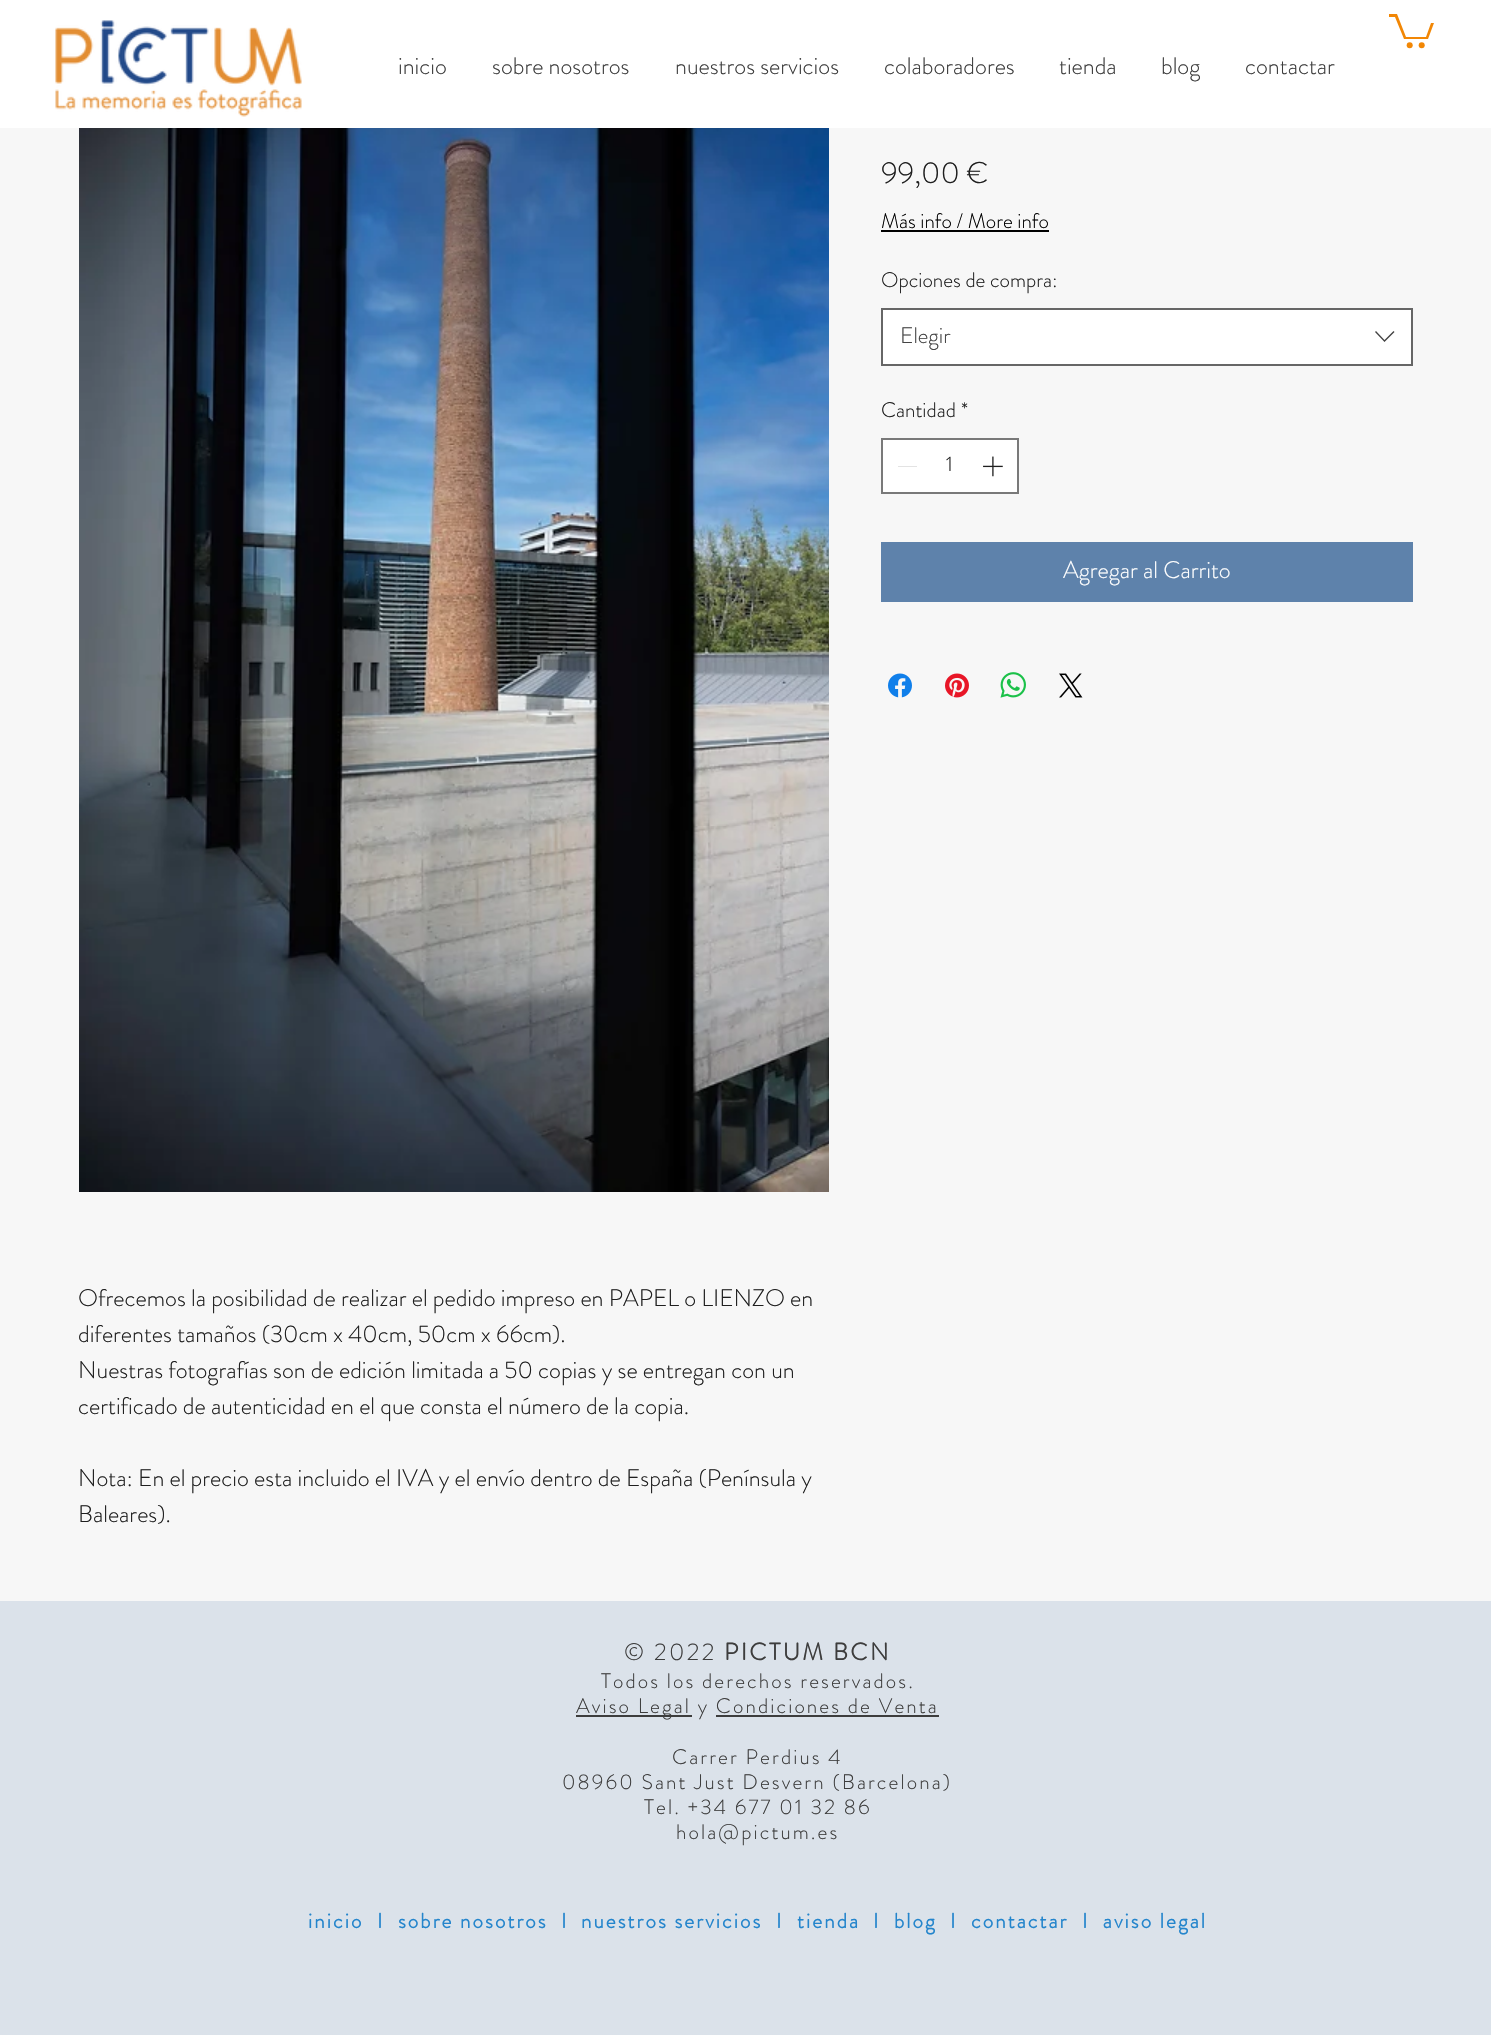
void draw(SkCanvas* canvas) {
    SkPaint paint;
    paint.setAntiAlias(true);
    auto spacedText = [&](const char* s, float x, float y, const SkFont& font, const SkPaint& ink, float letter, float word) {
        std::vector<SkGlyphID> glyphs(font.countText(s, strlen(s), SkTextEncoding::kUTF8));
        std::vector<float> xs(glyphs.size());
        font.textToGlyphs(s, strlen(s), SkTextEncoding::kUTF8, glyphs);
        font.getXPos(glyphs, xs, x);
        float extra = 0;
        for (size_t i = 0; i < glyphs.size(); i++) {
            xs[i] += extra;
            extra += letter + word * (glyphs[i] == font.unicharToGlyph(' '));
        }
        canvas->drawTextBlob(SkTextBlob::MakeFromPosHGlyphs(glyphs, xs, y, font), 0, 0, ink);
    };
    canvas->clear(0xFFF7F7F7);
    paint.setColor(0xFFFFFFFF);
    canvas->drawRect(SkRect::MakeXYWH(0, 0, 1491, 128), paint);
    canvas->drawImageRect(SkImages::DeferredFromEncodedData(SkData::MakeFromFileName("img1.png")), SkRect::MakeXYWH(55, 20, 247, 97), SkSamplingOptions());
    SkFont font1(fontMgr->matchFamilyStyle("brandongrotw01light", SkFontStyle(300, SkFontStyle::kNormal_Width, SkFontStyle::kUpright_Slant)), 24);
    font1.setSubpixel(true);
    paint.setColor(0xFF3D3D3D);
    canvas->drawString("inicio", 398, 74, font1, paint);
    canvas->drawString("sobre nosotros", 492, 74, font1, paint);
    canvas->drawString("nuestros servicios", 675, 74, font1, paint);
    canvas->drawString("colaboradores", 884, 74, font1, paint);
    canvas->drawString("tienda", 1059, 74, font1, paint);
    canvas->drawString("blog", 1161, 74, font1, paint);
    canvas->drawString("contactar", 1245, 74, font1, paint);
    paint.setColor(0xFFF28705);
    canvas->drawPath(SkPathBuilder().moveTo(1434, 23).lineTo(1428, 39).lineTo(1404, 39).lineTo(1395, 17).lineTo(1389, 17).lineTo(1389, 14).lineTo(1397, 14).lineTo(1406, 37).lineTo(1426, 37).lineTo(1431, 23).detach(), paint);
    canvas->drawCircle(1421.7f, 45.3f, 3, paint);
    canvas->drawCircle(1409.7f, 45.3f, 3, paint);
    SkFont font2(fontMgr->matchFamilyStyle("brandongrotw01light", SkFontStyle(300, SkFontStyle::kNormal_Width, SkFontStyle::kUpright_Slant)), 30);
    font2.setSubpixel(true);
    paint.setColor(0xFF1F1F1F);
    canvas->drawString("99,00 €", 881, 183, font2, paint);
    SkFont font3(fontMgr->matchFamilyStyle("brandongrotw01light", SkFontStyle(300, SkFontStyle::kNormal_Width, SkFontStyle::kUpright_Slant)), 21);
    font3.setSubpixel(true);
    paint.setColor(0xFF000000);
    canvas->drawString("Más info / More info", 881, 228, font3, paint);
    canvas->drawRect(SkRect::MakeXYWH(881, 230, 168, 2), paint);
    paint.setColor(0xFF1F1F1F);
    canvas->drawString("Opciones de compra:", 881, 287, font3, paint);
    paint.setColor(0xFFFFFFFF);
    canvas->drawRect(SkRect::MakeXYWH(882, 309, 530, 56), paint);
    paint.setStyle(SkPaint::kStroke_Style);
    paint.setStrokeWidth(2);
    paint.setColor(0xFF666666);
    canvas->drawRect(SkRect::MakeXYWH(882, 309, 530, 56), paint);
    SkFont font4(fontMgr->matchFamilyStyle("brandongrotw01light", SkFontStyle(300, SkFontStyle::kNormal_Width, SkFontStyle::kUpright_Slant)), 22.5f);
    font4.setSubpixel(true);
    paint.setStyle(SkPaint::kFill_Style);
    paint.setColor(0xFF444444);
    canvas->drawString("Elegir", 900, 343, font4, paint);
    canvas->drawPath(SkPathBuilder(SkPathFillType::kEvenOdd).moveTo(1393.5f, 331).lineTo(1394.5f, 332).lineTo(1384.5f, 342).lineTo(1375, 332).lineTo(1376, 331).lineTo(1384.5f, 340).close().detach(), paint);
    paint.setColor(0xFF1F1F1F);
    canvas->drawString("Cantidad", 881, 417, font3, paint);
    canvas->drawString("*", 961, 417, font3, paint);
    paint.setColor(0xFFFFFFFF);
    canvas->drawRect(SkRect::MakeXYWH(882, 439, 136, 54), paint);
    paint.setStyle(SkPaint::kStroke_Style);
    paint.setColor(0xFF797979);
    canvas->drawRect(SkRect::MakeXYWH(882, 439, 136, 54), paint);
    paint.setStyle(SkPaint::kFill_Style);
    paint.setColor(0xFFE3E3E3);
    canvas->drawRect(SkRect::MakeXYWH(898, 466, 19, 1), paint);
    paint.setColor(0xFF1F1F1F);
    canvas->drawString("1", 946, 471, font3, paint);
    canvas->drawImageRect(SkImages::DeferredFromEncodedData(SkData::MakeFromFileName("img2.png")), SkRect::MakeXYWH(983, 456, 20, 21), SkSamplingOptions());
    paint.setColor(0xFF5E82AB);
    canvas->drawRect(SkRect::MakeXYWH(881, 542, 532, 60), paint);
    paint.setColor(0xFFFFFFFF);
    canvas->drawString("Agregar al Carrito", 1063, 578, font1, paint);
    canvas->drawImageRect(SkImages::DeferredFromEncodedData(SkData::MakeFromFileName("img3.png")), SkRect::MakeXYWH(888, 673, 24, 25), SkSamplingOptions());
    canvas->drawImageRect(SkImages::DeferredFromEncodedData(SkData::MakeFromFileName("img4.png")), SkRect::MakeXYWH(945, 673, 24, 25), SkSamplingOptions());
    canvas->drawImageRect(SkImages::DeferredFromEncodedData(SkData::MakeFromFileName("img5.png")), SkRect::MakeXYWH(1000, 672, 26, 26), SkSamplingOptions());
    canvas->drawImageRect(SkImages::DeferredFromEncodedData(SkData::MakeFromFileName("img6.png")), SkRect::MakeXYWH(1059, 673, 24, 25), SkSamplingOptions());
    canvas->drawImageRect(SkImages::DeferredFromEncodedData(SkData::MakeFromFileName("img7.png")), SkRect::MakeXYWH(79, 128, 750, 1064), SkSamplingOptions());
    paint.setColor(0xFF1F1F1F);
    canvas->drawString("Ofrecemos la posibilidad de realizar el pedido impreso en PAPEL o LIENZO en", 78, 1306, font1, paint);
    canvas->drawString("diferentes tamaños (30cm x 40cm, 50cm x 66cm).", 78, 1342, font1, paint);
    canvas->drawString("Nuestras fotografías son de edición limitada a 50 copias y se entregan con un", 78, 1378, font1, paint);
    canvas->drawString("certificado de autenticidad en el que consta el número de la copia.", 78, 1414, font1, paint);
    canvas->drawString("Nota: En el precio esta incluido el IVA y el envío dentro de España (Península y", 78, 1486, font1, paint);
    canvas->drawString("Baleares).", 78, 1522, font1, paint);
    paint.setColor(0xFFDBE2EA);
    canvas->drawRect(SkRect::MakeXYWH(0, 1601, 1491, 434), paint);
    paint.setColor(0xFF3D3D3D);
    spacedText("© 2022", 624, 1660, font1, paint, 2.4f, 0);
    SkFont font5(fontMgr->matchFamilyStyle("brandongrotw01light", SkFontStyle::Bold()), 24);
    font5.setSubpixel(true);
    spacedText("PICTUM BCN", 724, 1660, font5, paint, 2.4f, 0);
    spacedText("Todos los derechos reservados.", 601, 1688, font3, paint, 2.1f, 0);
    canvas->drawRect(SkRect::MakeXYWH(576, 1715, 116, 2), paint);
    spacedText("Aviso Legal y Condiciones de Venta", 576, 1713, font3, paint, 2.1f, 0);
    canvas->drawRect(SkRect::MakeXYWH(716, 1715, 223, 2), paint);
    spacedText("Carrer Perdius 4", 672, 1764, font3, paint, 2.1f, 0);
    spacedText("08960 Sant Just Desvern (Barcelona)", 562, 1789, font3, paint, 2.1f, 0);
    spacedText("Tel. +34 677 01 32 86", 644, 1814, font3, paint, 2.1f, 0);
    spacedText("hola@pictum.es", 676, 1839, font3, paint, 2.1f, 0);
    SkFont font6(fontMgr->matchFamilyStyle("brandongrotw01light", SkFontStyle::Bold()), 21);
    font6.setSubpixel(true);
    paint.setColor(0xFF2485CC);
    spacedText("inicio", 308, 1928, font6, paint, 2.1f, 0);
    spacedText("I", 377, 1928, font6, paint, 2.1f, 0);
    spacedText("sobre nosotros", 398, 1928, font6, paint, 2.1f, 0);
    spacedText("I", 561, 1928, font6, paint, 2.1f, 0);
    spacedText("nuestros servicios", 581, 1928, font6, paint, 2.1f, 0);
    spacedText("I", 776, 1928, font6, paint, 2.1f, 0);
    spacedText("tienda", 797, 1928, font6, paint, 2.1f, 0);
    spacedText("I", 873, 1928, font6, paint, 2.1f, 0);
    spacedText("blog", 894, 1928, font6, paint, 2.1f, 0);
    spacedText("I", 950, 1928, font6, paint, 2.1f, 0);
    spacedText("contactar", 971, 1928, font6, paint, 2.1f, 0);
    spacedText("I  aviso legal", 1082, 1928, font6, paint, 2.1f, 0);
}
